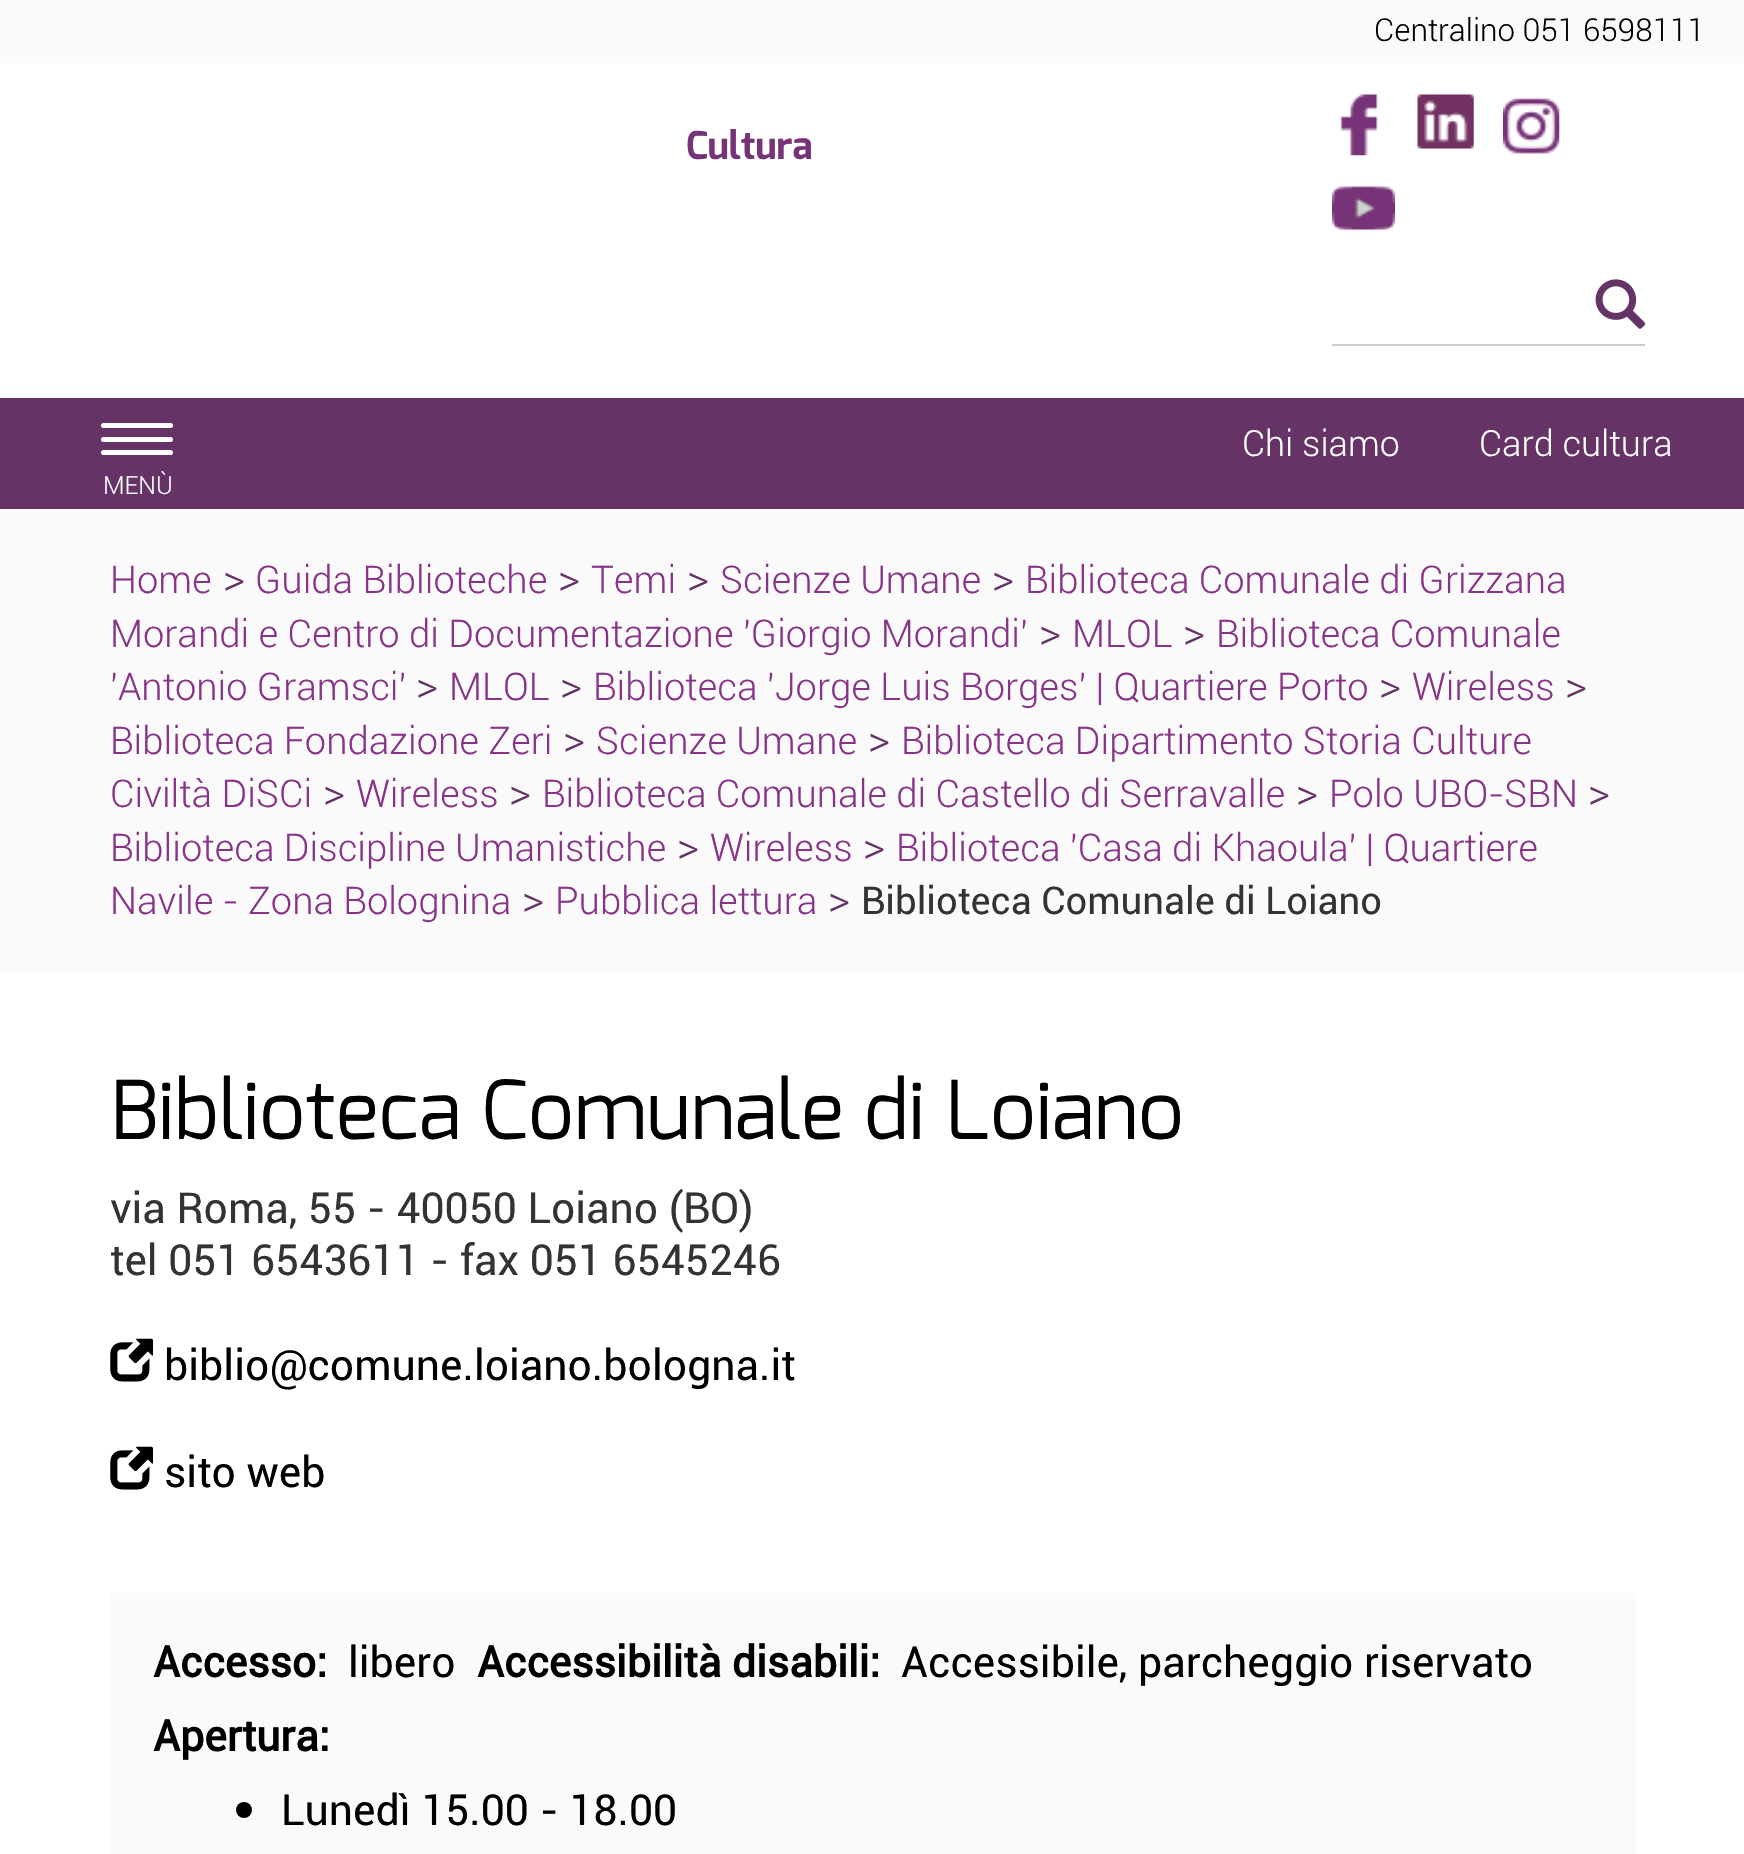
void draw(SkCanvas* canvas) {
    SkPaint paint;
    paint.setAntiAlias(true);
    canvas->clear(0xFFFFFFFF);
    paint.setColor(0xFFFAFAFA);
    canvas->drawRect(SkRect::MakeXYWH(0, 0, 1744, 63), paint);
    SkFont font1(fontMgr->matchFamilyStyle("Roboto", SkFontStyle(300, SkFontStyle::kNormal_Width, SkFontStyle::kUpright_Slant)), 31.5f);
    font1.setSubpixel(true);
    paint.setColor(0xFF000000);
    canvas->drawString("Centralino 051 6598111", 1374, 41, font1, paint);
    SkFont font2(fontMgr->matchFamilyStyle("Exo", SkFontStyle::Bold()), 38.25f);
    font2.setSubpixel(true);
    paint.setColor(0xFF773377);
    canvas->drawString("Cultura", 686, 159, font2, paint);
    canvas->drawImageRect(SkImages::DeferredFromEncodedData(SkData::MakeFromFileName("img1.png")), SkRect::MakeXYWH(1340, 94, 38, 62), SkSamplingOptions());
    canvas->drawImageRect(SkImages::DeferredFromEncodedData(SkData::MakeFromFileName("img2.png")), SkRect::MakeXYWH(1417, 94, 57, 55), SkSamplingOptions());
    canvas->drawImageRect(SkImages::DeferredFromEncodedData(SkData::MakeFromFileName("img3.png")), SkRect::MakeXYWH(1503, 98, 57, 56), SkSamplingOptions());
    canvas->drawImageRect(SkImages::DeferredFromEncodedData(SkData::MakeFromFileName("img4.png")), SkRect::MakeXYWH(1332, 186, 63, 45), SkSamplingOptions());
    canvas->drawImageRect(SkImages::DeferredFromEncodedData(SkData::MakeFromFileName("img5.png")), SkRect::MakeXYWH(1595, 279, 51, 50), SkSamplingOptions());
    paint.setColor(0xFFCCCCCC);
    canvas->drawRect(SkRect::MakeXYWH(1332, 344, 313, 2), paint);
    paint.setColor(0xFF663366);
    canvas->drawRect(SkRect::MakeXYWH(0, 398, 1744, 111), paint);
    SkFont font3(fontMgr->matchFamilyStyle("Roboto", SkFontStyle(300, SkFontStyle::kNormal_Width, SkFontStyle::kUpright_Slant)), 36);
    font3.setSubpixel(true);
    paint.setColor(0xFFFFFFFF);
    canvas->drawString("Chi siamo", 1242, 456, font3, paint);
    canvas->drawString("Card cultura", 1479, 456, font3, paint);
    canvas->drawRoundRect(SkRect::MakeXYWH(101, 423, 72, 5), 2.5f, 2.5f, paint);
    canvas->drawRoundRect(SkRect::MakeXYWH(101, 437, 72, 5), 2.5f, 2.5f, paint);
    canvas->drawRoundRect(SkRect::MakeXYWH(101, 450, 72, 5), 2.5f, 2.5f, paint);
    SkFont font4(fontMgr->matchFamilyStyle("Roboto", SkFontStyle(300, SkFontStyle::kNormal_Width, SkFontStyle::kUpright_Slant)), 25);
    font4.setSubpixel(true);
    canvas->drawString("MENÙ", 103, 494, font4, paint);
    paint.setColor(0xFFFAFAFA);
    canvas->drawRect(SkRect::MakeXYWH(0, 509, 1744, 463), paint);
    SkFont font5(fontMgr->matchFamilyStyle("Roboto", SkFontStyle(300, SkFontStyle::kNormal_Width, SkFontStyle::kUpright_Slant)), 38.25f);
    font5.setSubpixel(true);
    paint.setColor(0xFF883388);
    canvas->drawString("Home", 110, 593, font5, paint);
    SkFont font6(fontMgr->matchFamilyStyle("Roboto", SkFontStyle(300, SkFontStyle::kNormal_Width, SkFontStyle::kUpright_Slant)), 42.75f);
    font6.setSubpixel(true);
    paint.setColor(0xFF663366);
    canvas->drawString(">", 223, 593, font6, paint);
    paint.setColor(0xFF883388);
    canvas->drawString("Guida Biblioteche", 255, 593, font5, paint);
    paint.setColor(0xFF663366);
    canvas->drawString(">", 558, 593, font6, paint);
    paint.setColor(0xFF883388);
    canvas->drawString("Temi", 591, 593, font5, paint);
    paint.setColor(0xFF663366);
    canvas->drawString(">", 687, 593, font6, paint);
    paint.setColor(0xFF883388);
    canvas->drawString("Scienze Umane", 720, 593, font5, paint);
    paint.setColor(0xFF663366);
    canvas->drawString(">", 992, 593, font6, paint);
    paint.setColor(0xFF883388);
    canvas->drawString("Biblioteca Comunale di Grizzana", 1025, 593, font5, paint);
    canvas->drawString("Morandi e Centro di Documentazione 'Giorgio Morandi'", 110, 647, font5, paint);
    paint.setColor(0xFF663366);
    canvas->drawString(">", 1039, 647, font6, paint);
    paint.setColor(0xFF883388);
    canvas->drawString("MLOL", 1072, 647, font5, paint);
    paint.setColor(0xFF663366);
    canvas->drawString(">", 1183, 647, font6, paint);
    paint.setColor(0xFF883388);
    canvas->drawString("Biblioteca Comunale", 1216, 647, font5, paint);
    canvas->drawString("'Antonio Gramsci'", 110, 700, font5, paint);
    paint.setColor(0xFF663366);
    canvas->drawString(">", 416, 700, font6, paint);
    paint.setColor(0xFF883388);
    canvas->drawString("MLOL", 449, 700, font5, paint);
    paint.setColor(0xFF663366);
    canvas->drawString(">", 560, 700, font6, paint);
    paint.setColor(0xFF883388);
    canvas->drawString("Biblioteca 'Jorge Luis Borges' | Quartiere Porto", 593, 700, font5, paint);
    paint.setColor(0xFF663366);
    canvas->drawString(">", 1379, 700, font6, paint);
    paint.setColor(0xFF883388);
    canvas->drawString("Wireless", 1412, 700, font5, paint);
    paint.setColor(0xFF663366);
    canvas->drawString(">", 1565, 700, font6, paint);
    paint.setColor(0xFF883388);
    canvas->drawString("Biblioteca Fondazione Zeri", 110, 754, font5, paint);
    paint.setColor(0xFF663366);
    canvas->drawString(">", 563, 754, font6, paint);
    paint.setColor(0xFF883388);
    canvas->drawString("Scienze Umane", 596, 754, font5, paint);
    paint.setColor(0xFF663366);
    canvas->drawString(">", 868, 754, font6, paint);
    paint.setColor(0xFF883388);
    canvas->drawString("Biblioteca Dipartimento Storia Culture", 901, 754, font5, paint);
    canvas->drawString("Civiltà DiSCi", 110, 807, font5, paint);
    paint.setColor(0xFF663366);
    canvas->drawString(">", 323, 807, font6, paint);
    paint.setColor(0xFF883388);
    canvas->drawString("Wireless", 356, 807, font5, paint);
    paint.setColor(0xFF663366);
    canvas->drawString(">", 509, 807, font6, paint);
    paint.setColor(0xFF883388);
    canvas->drawString("Biblioteca Comunale di Castello di Serravalle", 542, 807, font5, paint);
    paint.setColor(0xFF663366);
    canvas->drawString(">", 1296, 807, font6, paint);
    paint.setColor(0xFF883388);
    canvas->drawString("Polo UBO-SBN", 1329, 807, font5, paint);
    paint.setColor(0xFF663366);
    canvas->drawString(">", 1588, 807, font6, paint);
    paint.setColor(0xFF883388);
    canvas->drawString("Biblioteca Discipline Umanistiche", 110, 861, font5, paint);
    paint.setColor(0xFF663366);
    canvas->drawString(">", 677, 861, font6, paint);
    paint.setColor(0xFF883388);
    canvas->drawString("Wireless", 710, 861, font5, paint);
    paint.setColor(0xFF663366);
    canvas->drawString(">", 863, 861, font6, paint);
    paint.setColor(0xFF883388);
    canvas->drawString("Biblioteca 'Casa di Khaoula' | Quartiere", 896, 861, font5, paint);
    canvas->drawString("Navile - Zona Bolognina", 110, 914, font5, paint);
    paint.setColor(0xFF663366);
    canvas->drawString(">", 522, 914, font6, paint);
    paint.setColor(0xFF883388);
    canvas->drawString("Pubblica lettura", 555, 914, font5, paint);
    paint.setColor(0xFF663366);
    canvas->drawString(">", 828, 914, font6, paint);
    SkFont font7(fontMgr->matchFamilyStyle("Roboto", SkFontStyle::Normal()), 38.25f);
    font7.setSubpixel(true);
    paint.setColor(0xFF333333);
    canvas->drawString("Biblioteca Comunale di Loiano", 861, 914, font7, paint);
    SkFont font8(fontMgr->matchFamilyStyle("Exo", SkFontStyle::Normal()), 81);
    font8.setSubpixel(true);
    paint.setColor(0xFF000000);
    canvas->drawString("Biblioteca Comunale di Loiano", 110, 1139, font8, paint);
    SkFont font9(fontMgr->matchFamilyStyle("Roboto", SkFontStyle::Normal()), 42.75f);
    font9.setSubpixel(true);
    paint.setColor(0xFF333333);
    canvas->drawString("via Roma, 55 - 40050 Loiano (BO)", 110, 1223, font9, paint);
    canvas->drawString("tel 051 6543611 - fax 051 6545246", 110, 1275, font9, paint);
    canvas->drawImageRect(SkImages::DeferredFromEncodedData(SkData::MakeFromFileName("img6.png")), SkRect::MakeXYWH(110, 1338, 43, 44), SkSamplingOptions());
    paint.setColor(0xFF000000);
    canvas->drawString("biblio@comune.loiano.bologna.it", 164, 1380, font9, paint);
    canvas->drawImageRect(SkImages::DeferredFromEncodedData(SkData::MakeFromFileName("img6.png")), SkRect::MakeXYWH(110, 1446, 43, 44), SkSamplingOptions());
    canvas->drawString("sito web", 164, 1487, font9, paint);
    paint.setColor(0xFFFAFAFA);
    canvas->drawRect(SkRect::MakeXYWH(110, 1593, 1526, 261), paint);
    SkFont font10(fontMgr->matchFamilyStyle("Roboto", SkFontStyle::Bold()), 42.75f);
    font10.setSubpixel(true);
    paint.setColor(0xFF000000);
    canvas->drawString("Accesso:", 153, 1677, font10, paint);
    canvas->drawString("libero", 348, 1677, font9, paint);
    canvas->drawString("Accessibilità disabili:", 477, 1677, font10, paint);
    canvas->drawString("Accessibile, parcheggio riservato", 901, 1677, font9, paint);
    canvas->drawString("Apertura:", 153, 1751, font10, paint);
    canvas->drawCircle(244, 1810, 8, paint);
    canvas->drawString("Lunedì 15.00 - 18.00", 281, 1825, font9, paint);
}
